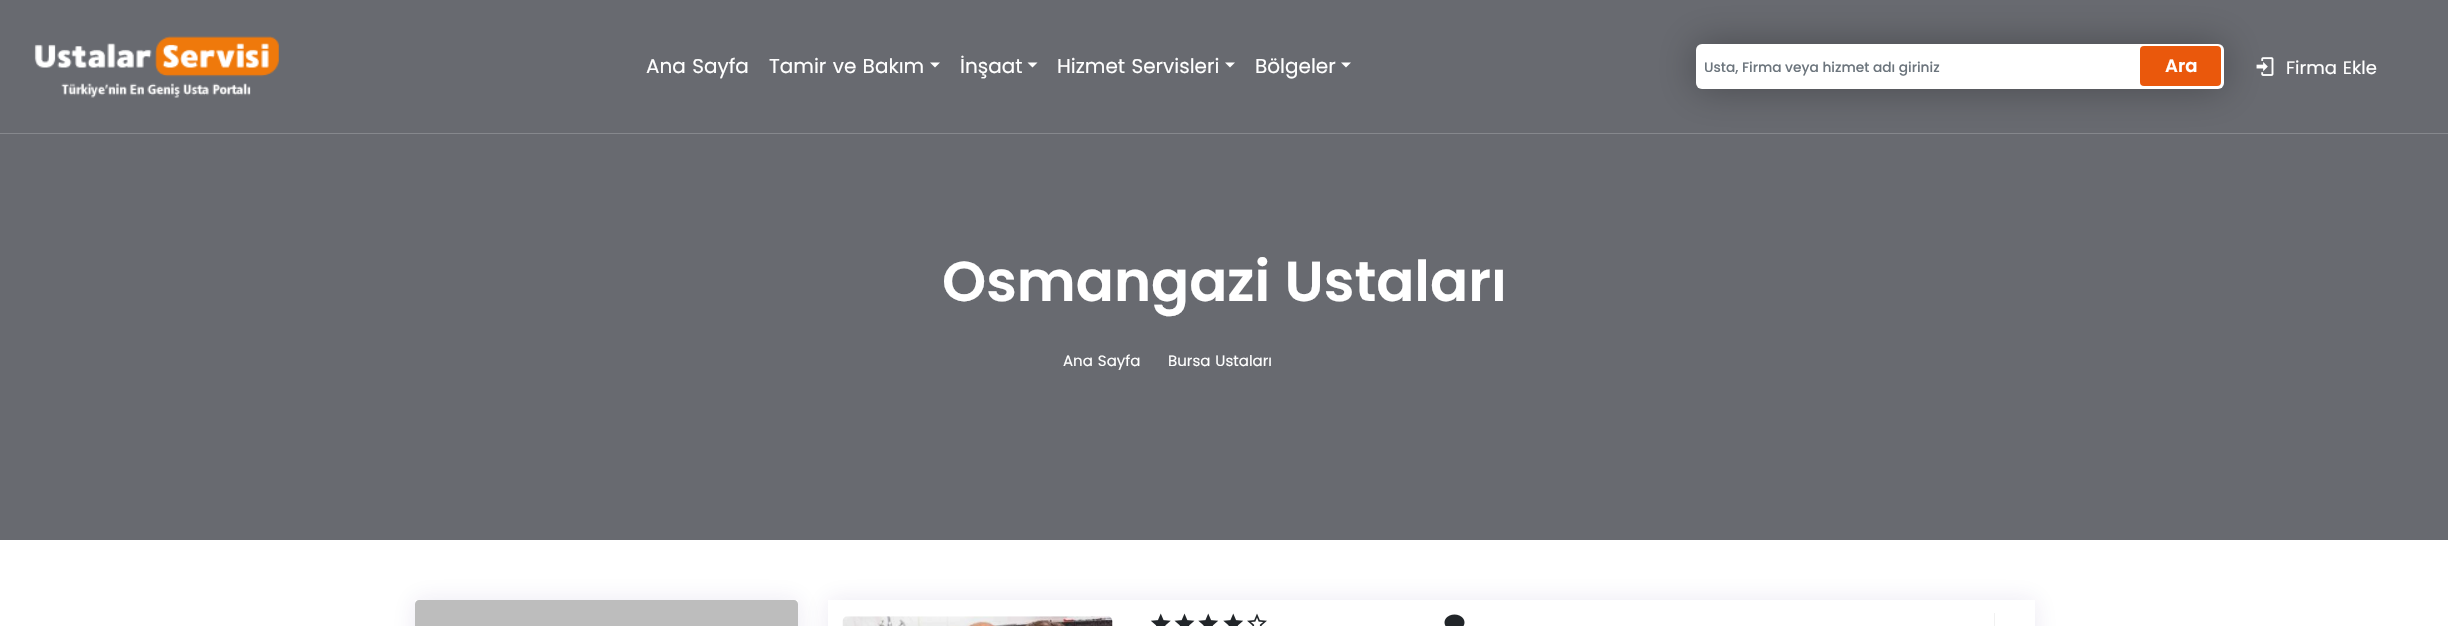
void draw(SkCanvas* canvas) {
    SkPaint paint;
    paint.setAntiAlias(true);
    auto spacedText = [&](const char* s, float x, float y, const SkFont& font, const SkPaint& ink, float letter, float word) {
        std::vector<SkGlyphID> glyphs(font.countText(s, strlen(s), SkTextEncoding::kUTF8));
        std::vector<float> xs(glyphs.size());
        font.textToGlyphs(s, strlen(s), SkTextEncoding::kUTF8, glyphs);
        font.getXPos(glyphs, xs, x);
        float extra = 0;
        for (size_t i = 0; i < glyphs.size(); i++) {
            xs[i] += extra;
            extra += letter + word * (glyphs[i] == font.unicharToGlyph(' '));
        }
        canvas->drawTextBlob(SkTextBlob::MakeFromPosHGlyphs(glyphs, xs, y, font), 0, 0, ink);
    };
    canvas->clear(0xFFFFFFFF);
    paint.setColor(0xFF686A70);
    canvas->drawRect(SkRect::MakeXYWH(0, 0, 2448, 540), paint);
    paint.setColor(0xFF86888D);
    canvas->drawRect(SkRect::MakeXYWH(0, 133, 2448, 1), paint);
    canvas->drawImageRect(SkImages::DeferredFromEncodedData(SkData::MakeFromFileName("img1.png")), SkRect::MakeXYWH(34, 36, 245, 62), SkSamplingOptions());
    SkFont font1(fontMgr->matchFamilyStyle("Poppins", SkFontStyle::Normal()), 20);
    font1.setSubpixel(true);
    paint.setColor(0xFFFFFFFF);
    spacedText("Ana Sayfa", 646, 73, font1, paint, 0, 1);
    spacedText("Tamir ve Bakım", 769, 73, font1, paint, 0, 1);
    canvas->drawPath(SkPathBuilder().moveTo(930, 62.5f).lineTo(940, 62.5f).lineTo(935, 67.5f).close().detach(), paint);
    canvas->drawString("İnşaat", 960, 73, font1, paint);
    canvas->drawPath(SkPathBuilder().moveTo(1027.5f, 62.5f).lineTo(1037.5f, 62.5f).lineTo(1032.5f, 67.5f).close().detach(), paint);
    spacedText("Hizmet Servisleri", 1057, 73, font1, paint, 0, 1);
    canvas->drawPath(SkPathBuilder().moveTo(1225, 62.5f).lineTo(1235, 62.5f).lineTo(1230, 67.5f).close().detach(), paint);
    canvas->drawString("Bölgeler", 1255, 73, font1, paint);
    canvas->drawPath(SkPathBuilder().moveTo(1341, 62.5f).lineTo(1351, 62.5f).lineTo(1346, 67.5f).close().detach(), paint);
    paint.setColor(0x4D000000);
    paint.setMaskFilter(SkMaskFilter::MakeBlur(kNormal_SkBlurStyle, 19));
    canvas->drawRoundRect(SkRect::MakeXYWH(1696, 44, 528, 45), 6, 6, paint);
    paint.setMaskFilter(nullptr);
    paint.setColor(0xFFFFFFFF);
    canvas->drawRoundRect(SkRect::MakeXYWH(1696, 44, 528, 45), 6, 6, paint);
    SkFont font2(fontMgr->matchFamilyStyle("Poppins", SkFontStyle(500, SkFontStyle::kNormal_Width, SkFontStyle::kUpright_Slant)), 13.75f);
    font2.setSubpixel(true);
    paint.setColor(0xFF6C757D);
    canvas->drawString("Usta, Firma veya hizmet adı giriniz", 1704, 72, font2, paint);
    paint.setColor(0xFFEA580C);
    canvas->drawRoundRect(SkRect::MakeXYWH(2140, 46, 81, 40), 4, 4, paint);
    SkFont font3(fontMgr->matchFamilyStyle("Poppins", SkFontStyle(600, SkFontStyle::kNormal_Width, SkFontStyle::kUpright_Slant)), 18);
    font3.setSubpixel(true);
    paint.setColor(0xFFFFFFFF);
    canvas->drawString("Ara", 2165, 72, font3, paint);
    canvas->drawImageRect(SkImages::DeferredFromEncodedData(SkData::MakeFromFileName("img2.png")), SkRect::MakeXYWH(2256, 57, 18, 19), SkSamplingOptions());
    SkFont font4(fontMgr->matchFamilyStyle("Poppins", SkFontStyle::Normal()), 18);
    font4.setSubpixel(true);
    spacedText("Firma Ekle", 2286, 74, font4, paint, 0, 1);
    SkFont font5(fontMgr->matchFamilyStyle("Poppins", SkFontStyle(600, SkFontStyle::kNormal_Width, SkFontStyle::kUpright_Slant)), 56.25f);
    font5.setSubpixel(true);
    spacedText("Osmangazi Ustaları", 942, 301, font5, paint, 0, 1);
    SkFont font6(fontMgr->matchFamilyStyle("Poppins", SkFontStyle::Normal()), 15);
    font6.setSubpixel(true);
    spacedText("Ana Sayfa", 1063, 366, font6, paint, 0, 1);
    spacedText("Bursa Ustaları", 1168, 366, font6, paint, 0, 1);
    paint.setColor(0x1A3E1C83);
    paint.setMaskFilter(SkMaskFilter::MakeBlur(kNormal_SkBlurStyle, 12.5f));
    canvas->drawRect(SkRect::MakeXYWH(415, 600, 383, 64), paint);
    paint.setMaskFilter(nullptr);
    paint.setColor(0xFFFFFFFF);
    canvas->drawRect(SkRect::MakeXYWH(415, 600, 383, 4), paint);
    paint.setColor(0xFFBDBDBD);
    canvas->drawPath(SkPathBuilder().moveTo(419, 600).lineTo(794, 600).cubicTo(796, 600, 798, 602, 798, 604).lineTo(798, 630).lineTo(415, 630).lineTo(415, 604).cubicTo(415, 602, 417, 600, 419, 600).close().detach(), paint);
    canvas->save();
    canvas->clipPath(SkPathBuilder(SkPathFillType::kEvenOdd).moveTo(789, 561).lineTo(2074, 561).lineTo(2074, 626).lineTo(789, 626).close().moveTo(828, 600).lineTo(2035, 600).lineTo(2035, 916).lineTo(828, 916).close().detach(), true);
    paint.setColor(0x1A3E1C83);
    paint.setMaskFilter(SkMaskFilter::MakeBlur(kNormal_SkBlurStyle, 12.5f));
    canvas->drawRect(SkRect::MakeXYWH(828, 600, 1207, 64), paint);
    paint.setMaskFilter(nullptr);
    canvas->restore();
    canvas->drawImageRect(SkImages::DeferredFromEncodedData(SkData::MakeFromFileName("img3.png")), SkRect::MakeXYWH(842, 616, 271, 10), SkSamplingOptions());
    canvas->drawImageRect(SkImages::DeferredFromEncodedData(SkData::MakeFromFileName("img4.png")), SkRect::MakeXYWH(1150, 613, 21, 13), SkSamplingOptions());
    canvas->drawImageRect(SkImages::DeferredFromEncodedData(SkData::MakeFromFileName("img5.png")), SkRect::MakeXYWH(1174, 613, 21, 13), SkSamplingOptions());
    canvas->drawImageRect(SkImages::DeferredFromEncodedData(SkData::MakeFromFileName("img6.png")), SkRect::MakeXYWH(1198, 613, 21, 13), SkSamplingOptions());
    canvas->drawImageRect(SkImages::DeferredFromEncodedData(SkData::MakeFromFileName("img6.png")), SkRect::MakeXYWH(1223, 613, 21, 13), SkSamplingOptions());
    canvas->drawImageRect(SkImages::DeferredFromEncodedData(SkData::MakeFromFileName("img7.png")), SkRect::MakeXYWH(1247, 613, 20, 13), SkSamplingOptions());
    canvas->drawImageRect(SkImages::DeferredFromEncodedData(SkData::MakeFromFileName("img8.png")), SkRect::MakeXYWH(1444, 614, 21, 12), SkSamplingOptions());
    paint.setColor(0xFFF1F1F1);
    canvas->drawRect(SkRect::MakeXYWH(1994, 613, 1, 13), paint);
}
